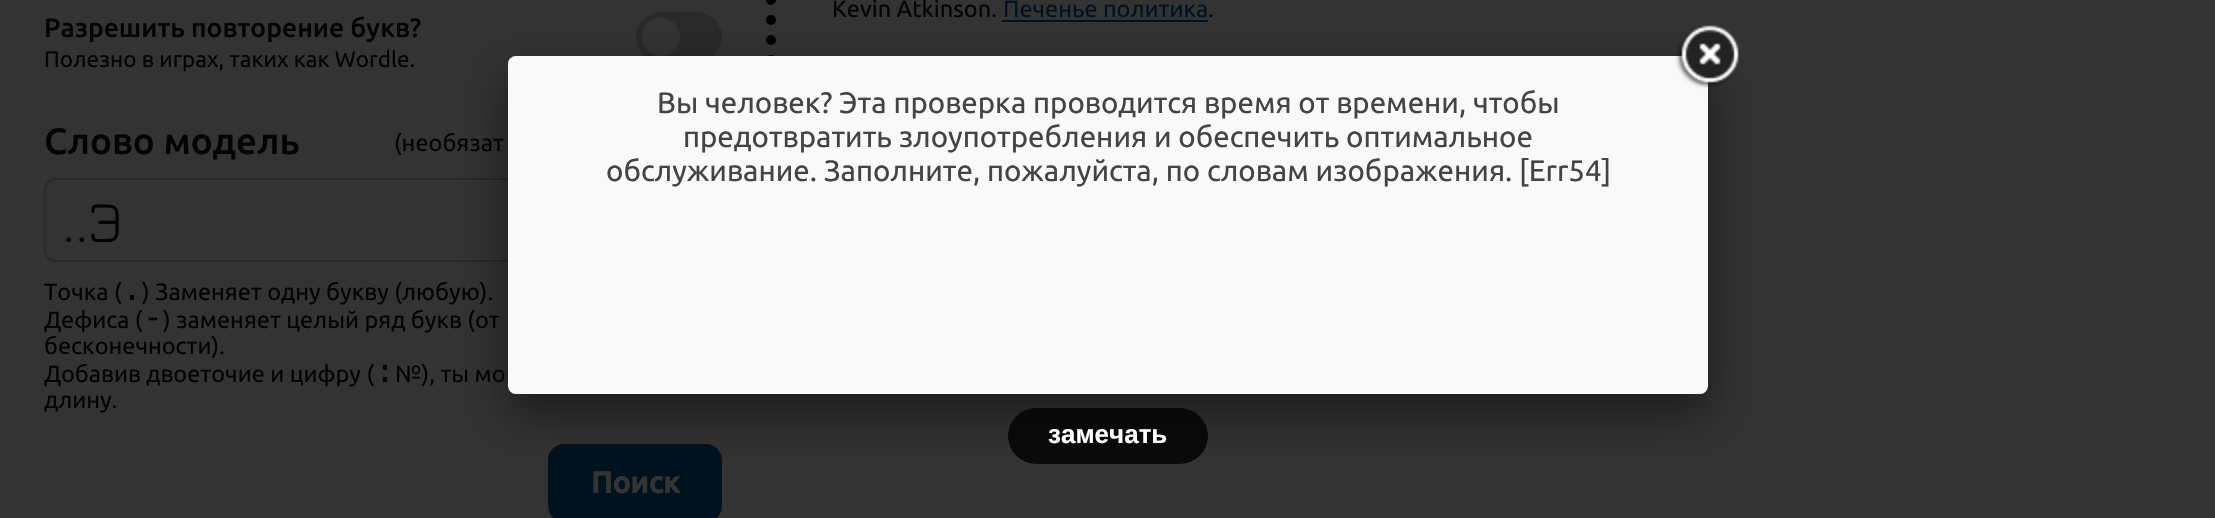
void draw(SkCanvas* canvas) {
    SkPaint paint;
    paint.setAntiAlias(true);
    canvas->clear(0xFF333333);
    paint.setStyle(SkPaint::kStroke_Style);
    paint.setStrokeWidth(10);
    paint.setStrokeCap(SkPaint::kRound_Cap);
    paint.setColor(0xFF000000);
    paint.setPathEffect(SkDashPathEffect::Make({{0, 20}}, 0));
    canvas->drawPath(SkPathBuilder().moveTo(771, -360).lineTo(771, 346).detach(), paint);
    paint.setPathEffect(nullptr);
    SkFont font1(fontMgr->matchFamilyStyle("Ubuntu", SkFontStyle::Normal()), 23.5f);
    font1.setSubpixel(true);
    paint.setStyle(SkPaint::kFill_Style);
    paint.setColor(0xFF040404);
    canvas->drawString("Kevin Atkinson.", 832, 17, font1, paint);
    paint.setColor(0xFF01121F);
    canvas->drawString("Печенье политика", 1003, 17, font1, paint);
    canvas->drawRect(SkRect::MakeXYWH(1002, 20, 206, 2), paint);
    paint.setColor(0xFF040404);
    canvas->drawString(".", 1208, 17, font1, paint);
    SkFont font2(fontMgr->matchFamilyStyle("Ubuntu", SkFontStyle(500, SkFontStyle::kNormal_Width, SkFontStyle::kUpright_Slant)), 26.5f);
    font2.setSubpixel(true);
    canvas->drawString("Разрешить повторение букв?", 44, 37, font2, paint);
    SkFont font3(fontMgr->matchFamilyStyle("Ubuntu", SkFontStyle::Normal()), 22.5f);
    font3.setSubpixel(true);
    canvas->drawString("Полезно в играх, таких как Wordle.", 44, 67, font3, paint);
    paint.setColor(0xFF292929);
    canvas->drawRoundRect(SkRect::MakeXYWH(636, 12, 86, 50), 25, 25, paint);
    paint.setColor(0xFF333333);
    canvas->drawCircle(661, 37, 19, paint);
    SkFont font4(fontMgr->matchFamilyStyle("Ubuntu", SkFontStyle(500, SkFontStyle::kNormal_Width, SkFontStyle::kUpright_Slant)), 36.75f);
    font4.setSubpixel(true);
    paint.setColor(0xFF040404);
    canvas->drawString("Слово модель", 44, 154, font4, paint);
    canvas->drawString("(необязат", 394, 151, font1, paint);
    paint.setStyle(SkPaint::kStroke_Style);
    paint.setStrokeWidth(2);
    paint.setStrokeCap(SkPaint::kButt_Cap);
    paint.setColor(0xFF292929);
    canvas->drawRoundRect(SkRect::MakeXYWH(45, 179, 676, 82), 11, 11, paint);
    SkFont font5(fontMgr->matchFamilyStyle("Jura", SkFontStyle::Normal()), 59);
    font5.setSubpixel(true);
    paint.setStyle(SkPaint::kFill_Style);
    paint.setColor(0xFF040404);
    canvas->drawString("..Э", 62, 242, font5, paint);
    canvas->drawString("Точка (", 44, 300, font1, paint);
    SkFont font6(fontMgr->matchFamilyStyle("DejaVu Sans Mono", SkFontStyle::Normal()), 33);
    font6.setSubpixel(true);
    canvas->drawString(".", 122, 300, font6, paint);
    canvas->drawString(") Заменяет одну букву (любую).", 142, 300, font1, paint);
    canvas->drawString("Дефиса (", 44, 328, font1, paint);
    canvas->drawString("-", 143, 328, font6, paint);
    canvas->drawString(") заменяет целый ряд букв (от", 163, 328, font1, paint);
    canvas->drawString("бесконечности).", 44, 354, font1, paint);
    canvas->drawString("Добавив двоеточие и цифру (", 44, 382, font1, paint);
    canvas->drawString(":", 375, 382, font6, paint);
    canvas->drawString("№), ты мо", 395, 382, font1, paint);
    canvas->drawString("длину.", 44, 408, font1, paint);
    paint.setColor(0xFF01121F);
    canvas->drawRoundRect(SkRect::MakeXYWH(549, 445, 172, 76), 15, 15, paint);
    paint.setStyle(SkPaint::kStroke_Style);
    canvas->drawRoundRect(SkRect::MakeXYWH(549, 445, 172, 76), 15, 15, paint);
    SkFont font7(fontMgr->matchFamilyStyle("Ubuntu", SkFontStyle::Bold()), 30);
    font7.setSubpixel(true);
    paint.setStyle(SkPaint::kFill_Style);
    paint.setColor(0xFF333333);
    canvas->drawString("Поиск", 591, 493, font7, paint);
    paint.setColor(0x80000000);
    paint.setMaskFilter(SkMaskFilter::MakeBlur(kNormal_SkBlurStyle, 25));
    canvas->drawRoundRect(SkRect::MakeXYWH(508, 76, 1200, 338), 8, 8, paint);
    paint.setMaskFilter(nullptr);
    paint.setColor(0xFFF9F9F9);
    canvas->drawRoundRect(SkRect::MakeXYWH(508, 56, 1200, 338), 8, 8, paint);
    canvas->drawImageRect(SkImages::DeferredFromEncodedData(SkData::MakeFromFileName("img1.png")), SkRect::MakeXYWH(1675, 25, 64, 64), SkSamplingOptions());
    SkFont font8(fontMgr->matchFamilyStyle("Ubuntu", SkFontStyle::Normal()), 29.45f);
    font8.setSubpixel(true);
    paint.setColor(0xFF444444);
    canvas->drawString("Вы человек? Эта проверка проводится время от времени, чтобы", 657, 113, font8, paint);
    canvas->drawString("предотвратить злоупотребления и обеспечить оптимальное", 683, 147, font8, paint);
    canvas->drawString("обслуживание. Заполните, пожалуйста, по словам изображения. [Err54]", 606, 181, font8, paint);
    paint.setColor(0xCC000000);
    canvas->drawRoundRect(SkRect::MakeXYWH(1008, 408, 200, 56), 28, 28, paint);
    SkFont font9(fontMgr->matchFamilyStyle("Liberation Sans", SkFontStyle::Bold()), 26);
    font9.setSubpixel(true);
    paint.setColor(0xFFFFFFFF);
    canvas->drawString("замечать", 1048, 443, font9, paint);
}
